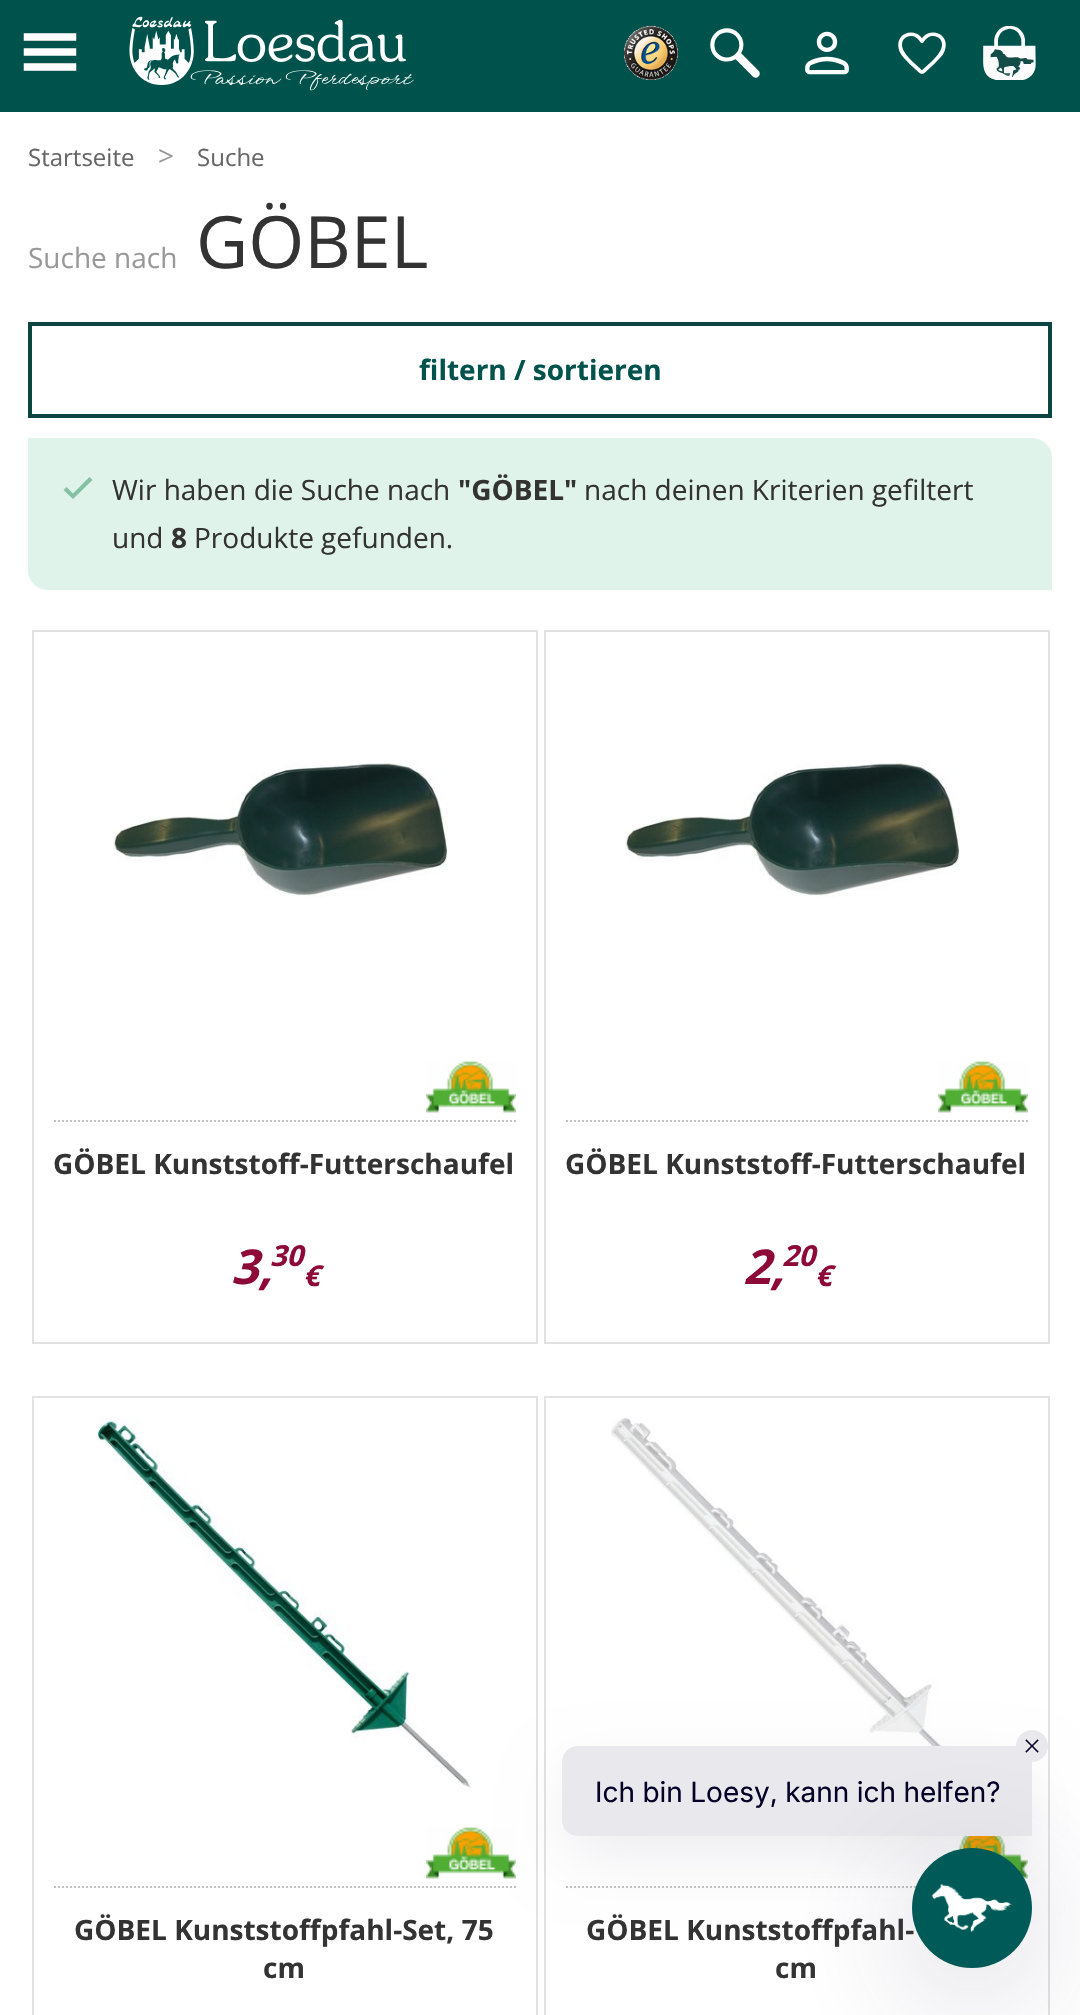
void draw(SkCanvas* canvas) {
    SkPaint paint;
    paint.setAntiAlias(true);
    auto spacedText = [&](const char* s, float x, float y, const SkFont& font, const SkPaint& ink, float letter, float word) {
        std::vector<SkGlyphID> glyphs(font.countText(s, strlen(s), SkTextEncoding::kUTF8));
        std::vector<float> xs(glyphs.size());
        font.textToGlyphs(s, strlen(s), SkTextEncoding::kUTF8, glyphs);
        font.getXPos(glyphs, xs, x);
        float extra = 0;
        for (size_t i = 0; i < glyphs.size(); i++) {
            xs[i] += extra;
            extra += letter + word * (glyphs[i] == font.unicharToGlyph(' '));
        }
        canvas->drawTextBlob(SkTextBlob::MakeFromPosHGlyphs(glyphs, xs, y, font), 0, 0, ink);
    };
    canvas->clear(0xFFFFFFFF);
    paint.setColor(0xFF00534C);
    canvas->drawRect(SkRect::MakeXYWH(0, 0, 1080, 112), paint);
    canvas->drawImageRect(SkImages::DeferredFromEncodedData(SkData::MakeFromFileName("img1.png")), SkRect::MakeXYWH(23, 33, 54, 38), SkSamplingOptions());
    canvas->drawImageRect(SkImages::DeferredFromEncodedData(SkData::MakeFromFileName("img2.png")), SkRect::MakeXYWH(129, 16, 285, 75), SkSamplingOptions());
    canvas->drawImageRect(SkImages::DeferredFromEncodedData(SkData::MakeFromFileName("img3.png")), SkRect::MakeXYWH(624, 26, 54, 54), SkSamplingOptions());
    canvas->drawImageRect(SkImages::DeferredFromEncodedData(SkData::MakeFromFileName("img4.png")), SkRect::MakeXYWH(710, 28, 50, 50), SkSamplingOptions());
    canvas->drawImageRect(SkImages::DeferredFromEncodedData(SkData::MakeFromFileName("img5.png")), SkRect::MakeXYWH(805, 31, 44, 44), SkSamplingOptions());
    canvas->drawImageRect(SkImages::DeferredFromEncodedData(SkData::MakeFromFileName("img6.png")), SkRect::MakeXYWH(898, 32, 48, 42), SkSamplingOptions());
    canvas->drawImageRect(SkImages::DeferredFromEncodedData(SkData::MakeFromFileName("img7.png")), SkRect::MakeXYWH(983, 26, 53, 54), SkSamplingOptions());
    SkFont font1(fontMgr->matchFamilyStyle("Open Sans", SkFontStyle::Normal()), 24);
    font1.setSubpixel(true);
    paint.setColor(0xFF666666);
    canvas->drawString("Startseite", 28, 166, font1, paint);
    SkFont font2(fontMgr->matchFamilyStyle("Open Sans", SkFontStyle::Normal()), 28);
    font2.setSubpixel(true);
    paint.setColor(0xFF999999);
    canvas->drawString(">", 158, 166, font2, paint);
    paint.setColor(0xFF666666);
    canvas->drawString("Suche", 197, 166, font1, paint);
    paint.setColor(0xFF999999);
    canvas->drawString("Suche nach", 28, 268, font2, paint);
    SkFont font3(fontMgr->matchFamilyStyle("Open Sans", SkFontStyle::Normal()), 72);
    font3.setSubpixel(true);
    paint.setColor(0xFF333333);
    canvas->drawString("GÖBEL", 196, 268, font3, paint);
    paint.setStyle(SkPaint::kStroke_Style);
    paint.setStrokeWidth(4);
    paint.setColor(0xFF0B4440);
    canvas->drawRect(SkRect::MakeXYWH(30, 324, 1020, 92), paint);
    SkFont font4(fontMgr->matchFamilyStyle("Open Sans", SkFontStyle::Bold()), 28);
    font4.setSubpixel(true);
    paint.setStyle(SkPaint::kFill_Style);
    paint.setColor(0xFF00534C);
    canvas->drawString("filtern / sortieren", 419, 380, font4, paint);
    paint.setColor(0xFFE0F3EB);
    canvas->drawPath(SkPathBuilder().moveTo(28, 438).lineTo(1032, 438).cubicTo(1043, 438, 1052, 447, 1052, 458).lineTo(1052, 590).lineTo(48, 590).cubicTo(37, 590, 28, 581, 28, 570).close().detach(), paint);
    paint.setColor(0xFF83C1A2);
    canvas->drawPath(SkPathBuilder().moveTo(73, 499).lineTo(63.5f, 490).lineTo(66.5f, 487).lineTo(73, 493.5f).lineTo(89.5f, 477).lineTo(92.5f, 480).close().detach(), paint);
    paint.setColor(0xFF333333);
    canvas->drawString("Wir haben die Suche nach", 112, 500, font2, paint);
    canvas->drawString("\"GÖBEL\"", 458, 500, font4, paint);
    canvas->drawString("nach deinen Kriterien gefiltert", 584, 500, font2, paint);
    canvas->drawString("und", 112, 548, font2, paint);
    canvas->drawString("8", 171, 548, font4, paint);
    canvas->drawString("Produkte gefunden.", 194, 548, font2, paint);
    paint.setStyle(SkPaint::kStroke_Style);
    paint.setStrokeWidth(2);
    paint.setColor(0xFFE2E2E2);
    canvas->drawRect(SkRect::MakeXYWH(33, 631, 504, 712), paint);
    canvas->drawImageRect(SkImages::DeferredFromEncodedData(SkData::MakeFromFileName("img8.png")), SkRect::MakeXYWH(113, 763, 335, 134), SkSamplingOptions());
    canvas->drawImageRect(SkImages::DeferredFromEncodedData(SkData::MakeFromFileName("img9.png")), SkRect::MakeXYWH(426, 1061, 90, 52), SkSamplingOptions());
    paint.setColor(0xFFC1C1C1);
    paint.setPathEffect(SkDashPathEffect::Make({{2, 2}}, 0));
    canvas->drawPath(SkPathBuilder().moveTo(54, 1121).lineTo(516, 1121).detach(), paint);
    paint.setPathEffect(nullptr);
    paint.setStyle(SkPaint::kFill_Style);
    paint.setColor(0xFF333333);
    canvas->drawString("GÖBEL Kunststoff-Futterschaufel", 53, 1174, font4, paint);
    SkFont font5(fontMgr->matchFamilyStyle("Open Sans", SkFontStyle::BoldItalic()), 48);
    font5.setSubpixel(true);
    paint.setColor(0xFF8D0A38);
    canvas->drawString("3,", 231, 1284, font5, paint);
    SkFont font6(fontMgr->matchFamilyStyle("Open Sans", SkFontStyle::BoldItalic()), 29);
    font6.setSubpixel(true);
    canvas->drawString("30", 270, 1266, font6, paint);
    canvas->drawString("€", 303, 1286, font6, paint);
    paint.setStyle(SkPaint::kStroke_Style);
    paint.setColor(0xFFE2E2E2);
    canvas->drawRect(SkRect::MakeXYWH(545, 631, 504, 712), paint);
    canvas->drawImageRect(SkImages::DeferredFromEncodedData(SkData::MakeFromFileName("img8.png")), SkRect::MakeXYWH(625, 763, 335, 134), SkSamplingOptions());
    canvas->drawImageRect(SkImages::DeferredFromEncodedData(SkData::MakeFromFileName("img10.png")), SkRect::MakeXYWH(938, 1061, 90, 52), SkSamplingOptions());
    paint.setColor(0xFFC1C1C1);
    paint.setPathEffect(SkDashPathEffect::Make({{2, 2}}, 0));
    canvas->drawPath(SkPathBuilder().moveTo(566, 1121).lineTo(1028, 1121).detach(), paint);
    paint.setPathEffect(nullptr);
    paint.setStyle(SkPaint::kFill_Style);
    paint.setColor(0xFF333333);
    canvas->drawString("GÖBEL Kunststoff-Futterschaufel", 565, 1174, font4, paint);
    paint.setColor(0xFF8D0A38);
    canvas->drawString("2,", 743, 1284, font5, paint);
    canvas->drawString("20", 782, 1266, font6, paint);
    canvas->drawString("€", 815, 1286, font6, paint);
    paint.setStyle(SkPaint::kStroke_Style);
    paint.setColor(0xFFE2E2E2);
    canvas->drawRect(SkRect::MakeXYWH(33, 1397, 504, 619), paint);
    canvas->drawImageRect(SkImages::DeferredFromEncodedData(SkData::MakeFromFileName("img11.png")), SkRect::MakeXYWH(98, 1418, 372, 372), SkSamplingOptions());
    canvas->drawImageRect(SkImages::DeferredFromEncodedData(SkData::MakeFromFileName("img9.png")), SkRect::MakeXYWH(426, 1827, 90, 52), SkSamplingOptions());
    paint.setColor(0xFFC1C1C1);
    paint.setPathEffect(SkDashPathEffect::Make({{2, 2}}, 0));
    canvas->drawPath(SkPathBuilder().moveTo(54, 1887).lineTo(516, 1887).detach(), paint);
    paint.setPathEffect(nullptr);
    paint.setStyle(SkPaint::kFill_Style);
    paint.setColor(0xFF333333);
    canvas->drawString("GÖBEL Kunststoffpfahl-Set, 75", 74, 1940, font4, paint);
    canvas->drawString("cm", 263, 1978, font4, paint);
    paint.setStyle(SkPaint::kStroke_Style);
    paint.setColor(0xFFE2E2E2);
    canvas->drawRect(SkRect::MakeXYWH(545, 1397, 504, 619), paint);
    canvas->drawImageRect(SkImages::DeferredFromEncodedData(SkData::MakeFromFileName("img12.png")), SkRect::MakeXYWH(611, 1418, 371, 328), SkSamplingOptions());
    canvas->drawImageRect(SkImages::DeferredFromEncodedData(SkData::MakeFromFileName("img13.png")), SkRect::MakeXYWH(938, 1836, 90, 43), SkSamplingOptions());
    paint.setColor(0xFFC1C1C1);
    paint.setPathEffect(SkDashPathEffect::Make({{2, 2}}, 0));
    canvas->drawPath(SkPathBuilder().moveTo(566, 1887).lineTo(1028, 1887).detach(), paint);
    paint.setPathEffect(nullptr);
    paint.setStyle(SkPaint::kFill_Style);
    paint.setColor(0xFF333333);
    canvas->drawString("GÖBEL Kunststoffpfahl-", 586, 1940, font4, paint);
    canvas->drawString("cm", 775, 1978, font4, paint);
    paint.setColor(0x14060127);
    paint.setMaskFilter(SkMaskFilter::MakeBlur(kNormal_SkBlurStyle, 32));
    canvas->drawRoundRect(SkRect::MakeXYWH(570, 1778, 454, 74), 8, 8, paint);
    paint.setMaskFilter(nullptr);
    paint.setColor(0xFFE9E9ED);
    canvas->drawPath(SkPathBuilder().moveTo(578, 1746).lineTo(1016, 1746).cubicTo(1025, 1746, 1032, 1753, 1032, 1762).lineTo(1032, 1836).lineTo(578, 1836).cubicTo(569, 1836, 562, 1829, 562, 1820).lineTo(562, 1762).cubicTo(562, 1753, 569, 1746, 578, 1746).close().detach(), paint);
    canvas->drawCircle(1032, 1746, 14, paint);
    paint.setStyle(SkPaint::kStroke_Style);
    paint.setStrokeWidth(4);
    canvas->drawCircle(1032, 1746, 14, paint);
    canvas->drawImageRect(SkImages::DeferredFromEncodedData(SkData::MakeFromFileName("img15.png")), SkRect::MakeXYWH(1025, 1739, 14, 14), SkSamplingOptions());
    paint.setStyle(SkPaint::kFill_Style);
    paint.setColor(0x3D3E2F59);
    paint.setMaskFilter(SkMaskFilter::MakeBlur(kNormal_SkBlurStyle, 64));
    canvas->drawRoundRect(SkRect::MakeXYWH(912, 1872, 120, 120), 60, 60, paint);
    paint.setMaskFilter(nullptr);
    paint.setColor(0xFF005B58);
    canvas->drawCircle(972, 1908, 60, paint);
    canvas->drawImageRect(SkImages::DeferredFromEncodedData(SkData::MakeFromFileName("img14.png")), SkRect::MakeXYWH(932, 1884, 80, 48), SkSamplingOptions());
    SkFont font7(fontMgr->matchFamilyStyle("Inter", SkFontStyle::Normal()), 28);
    font7.setSubpixel(true);
    paint.setColor(0xFF060127);
    spacedText("Ich bin Loesy, kann ich helfen?", 595, 1802, font7, paint, 0, -0.5f);
}
